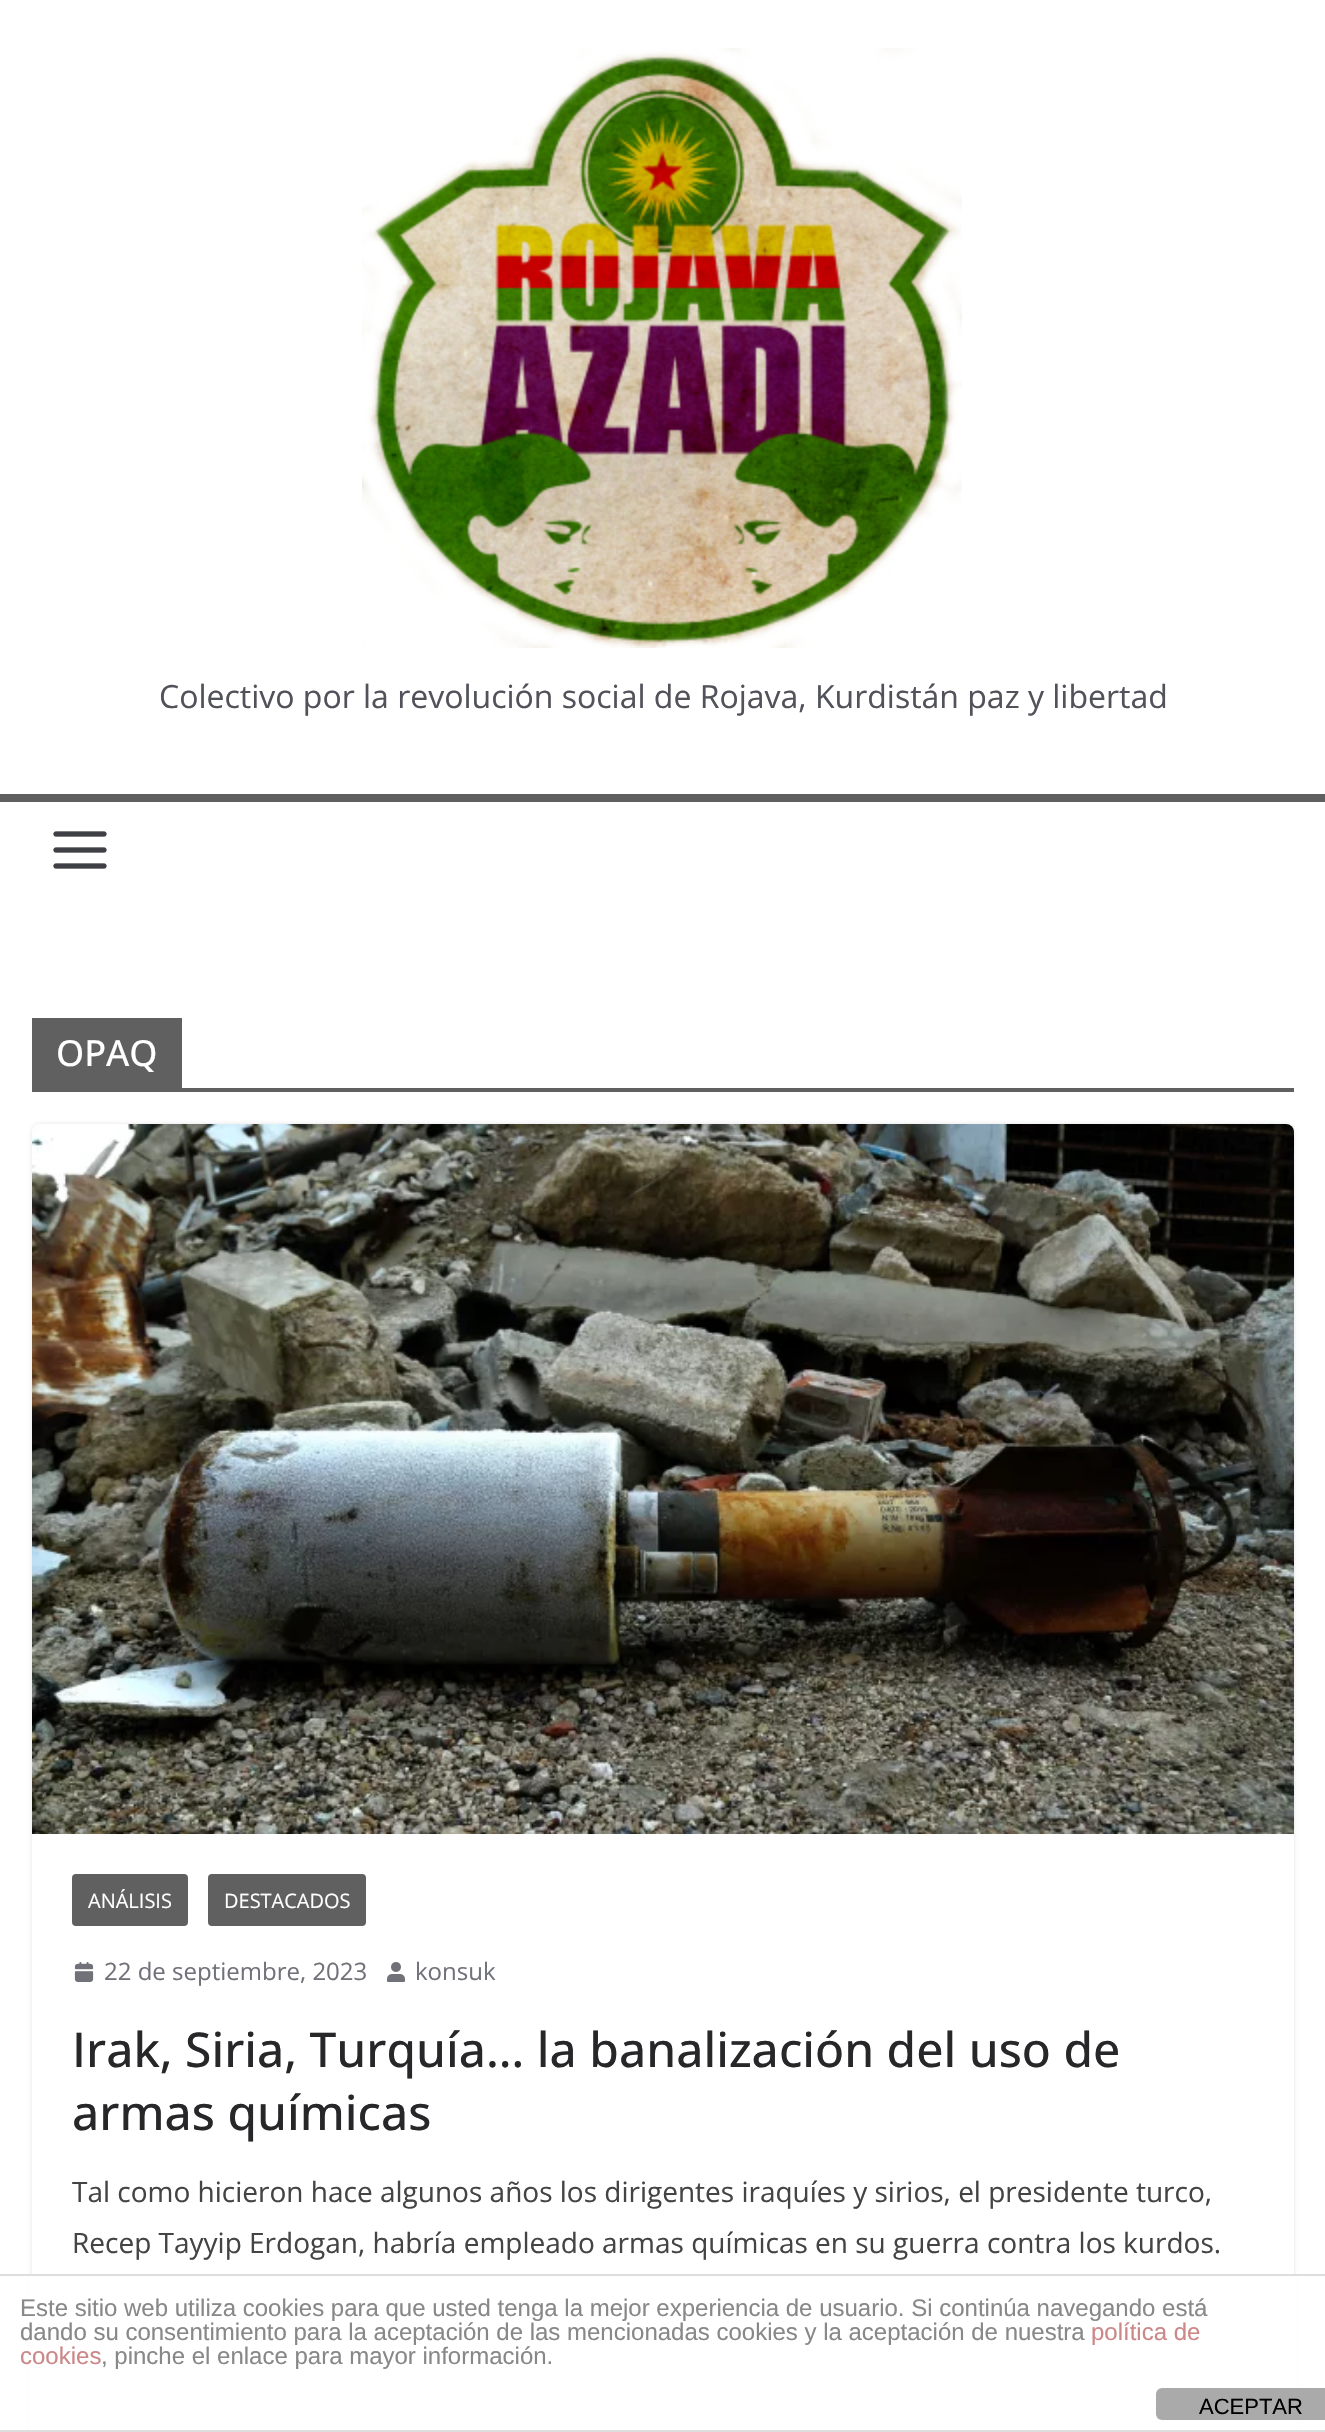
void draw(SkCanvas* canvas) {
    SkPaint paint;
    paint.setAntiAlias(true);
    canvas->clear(0xFFFFFFFF);
    canvas->drawImageRect(SkImages::DeferredFromEncodedData(SkData::MakeFromFileName("img1.png")), SkRect::MakeXYWH(362, 48, 600, 600), SkSamplingOptions());
    SkFont font1(fontMgr->matchFamilyStyle("Open Sans", SkFontStyle::Normal()), 32);
    font1.setSubpixel(true);
    paint.setColor(0xFF52525B);
    canvas->drawString("Colectivo por la revolución social de Rojava, Kurdistán paz y libertad", 159, 708, font1, paint);
    paint.setColor(0xFF606060);
    canvas->drawRect(SkRect::MakeXYWH(0, 794, 1325, 8), paint);
    canvas->drawImageRect(SkImages::DeferredFromEncodedData(SkData::MakeFromFileName("img2.png")), SkRect::MakeXYWH(53, 831, 54, 38), SkSamplingOptions());
    canvas->drawRect(SkRect::MakeXYWH(32, 1088, 1262, 4), paint);
    canvas->drawRect(SkRect::MakeXYWH(32, 1018, 150, 70), paint);
    SkFont font2(fontMgr->matchFamilyStyle("Open Sans", SkFontStyle(500, SkFontStyle::kNormal_Width, SkFontStyle::kUpright_Slant)), 36);
    font2.setSubpixel(true);
    paint.setColor(0xFFFFFFFF);
    canvas->drawString("OPAQ", 56, 1066, font2, paint);
    canvas->save();
    canvas->clipPath(SkPathBuilder(SkPathFillType::kEvenOdd).moveTo(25, 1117).lineTo(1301, 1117).lineTo(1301, 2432).lineTo(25, 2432).close().moveTo(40, 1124).lineTo(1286, 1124).cubicTo(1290.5f, 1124, 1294, 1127.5f, 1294, 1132).lineTo(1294, 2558).cubicTo(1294, 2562.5f, 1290.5f, 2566, 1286, 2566).lineTo(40, 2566).cubicTo(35.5f, 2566, 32, 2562.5f, 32, 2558).lineTo(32, 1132).cubicTo(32, 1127.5f, 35.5f, 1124, 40, 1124).close().detach(), true);
    paint.setColor(0xFFE4E4E7);
    paint.setMaskFilter(SkMaskFilter::MakeBlur(kNormal_SkBlurStyle, 2));
    canvas->drawRoundRect(SkRect::MakeXYWH(32, 1124, 1262, 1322), 8, 8, paint);
    paint.setMaskFilter(nullptr);
    canvas->restore();
    canvas->drawImageRect(SkImages::DeferredFromEncodedData(SkData::MakeFromFileName("img3.png")), SkRect::MakeXYWH(32, 1124, 1262, 710), SkSamplingOptions());
    paint.setColor(0xFF606060);
    canvas->drawRoundRect(SkRect::MakeXYWH(72, 1874, 116, 52), 4, 4, paint);
    SkFont font3(fontMgr->matchFamilyStyle("Open Sans", SkFontStyle::Normal()), 20);
    font3.setSubpixel(true);
    paint.setColor(0xFFFFFFFF);
    canvas->drawString("ANÁLISIS", 88, 1908, font3, paint);
    paint.setColor(0xFF606060);
    canvas->drawRoundRect(SkRect::MakeXYWH(208, 1874, 158, 52), 4, 4, paint);
    paint.setColor(0xFFFFFFFF);
    canvas->drawString("DESTACADOS", 224, 1908, font3, paint);
    canvas->drawImageRect(SkImages::DeferredFromEncodedData(SkData::MakeFromFileName("img4.png")), SkRect::MakeXYWH(74, 1962, 20, 20), SkSamplingOptions());
    SkFont font4(fontMgr->matchFamilyStyle("Open Sans", SkFontStyle::Normal()), 24);
    font4.setSubpixel(true);
    paint.setColor(0xFF71717A);
    canvas->drawString("22 de septiembre, 2023", 104, 1980, font4, paint);
    canvas->drawImageRect(SkImages::DeferredFromEncodedData(SkData::MakeFromFileName("img5.png")), SkRect::MakeXYWH(387, 1962, 18, 20), SkSamplingOptions());
    canvas->drawString("konsuk", 415, 1980, font4, paint);
    SkFont font5(fontMgr->matchFamilyStyle("Open Sans", SkFontStyle(500, SkFontStyle::kNormal_Width, SkFontStyle::kUpright_Slant)), 48);
    font5.setSubpixel(true);
    paint.setColor(0xFF27272A);
    canvas->drawString("Irak, Siria, Turquía… la banalización del uso de", 72, 2067, font5, paint);
    canvas->drawString("armas químicas", 72, 2130, font5, paint);
    SkFont font6(fontMgr->matchFamilyStyle("Open Sans", SkFontStyle::Normal()), 28);
    font6.setSubpixel(true);
    paint.setColor(0xFF444444);
    canvas->drawString("Tal como hicieron hace algunos años los dirigentes iraquíes y sirios, el presidente turco,", 72, 2202, font6, paint);
    canvas->drawString("Recep Tayyip Erdogan, habría empleado armas químicas en su guerra contra los kurdos.", 72, 2253, font6, paint);
    paint.setColor(0xFFFFFFFF);
    canvas->drawRect(SkRect::MakeXYWH(29, 2276, 1268, 154), paint);
    paint.setColor(0xFFDDDDDD);
    canvas->drawRect(SkRect::MakeXYWH(0, 2274, 1325, 2), paint);
    canvas->drawRect(SkRect::MakeXYWH(0, 2430, 1325, 2), paint);
    SkFont font7(fontMgr->matchFamilyStyle("Liberation Sans", SkFontStyle::Normal()), 24);
    font7.setSubpixel(true);
    paint.setColor(0xFF888888);
    canvas->drawString("Este sitio web utiliza cookies para que usted tenga la mejor experiencia de usuario. Si continúa navegando está", 20, 2316, font7, paint);
    canvas->drawString("dando su consentimiento para la aceptación de las mencionadas cookies y la aceptación de nuestra", 20, 2340, font7, paint);
    paint.setColor(0xFFCC8888);
    canvas->drawString("política de", 1091, 2340, font7, paint);
    canvas->drawString("cookies", 20, 2364, font7, paint);
    paint.setColor(0xFF888888);
    canvas->drawString(", pinche el enlace para mayor información.", 101, 2364, font7, paint);
    paint.setColor(0xFFAAAAAA);
    canvas->drawRoundRect(SkRect::MakeXYWH(1156, 2388, 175, 32), 6, 6, paint);
    SkFont font8(fontMgr->matchFamilyStyle("Liberation Sans", SkFontStyle::Normal()), 22);
    font8.setSubpixel(true);
    paint.setColor(0xFF000000);
    canvas->drawString("ACEPTAR", 1199, 2414, font8, paint);
}
